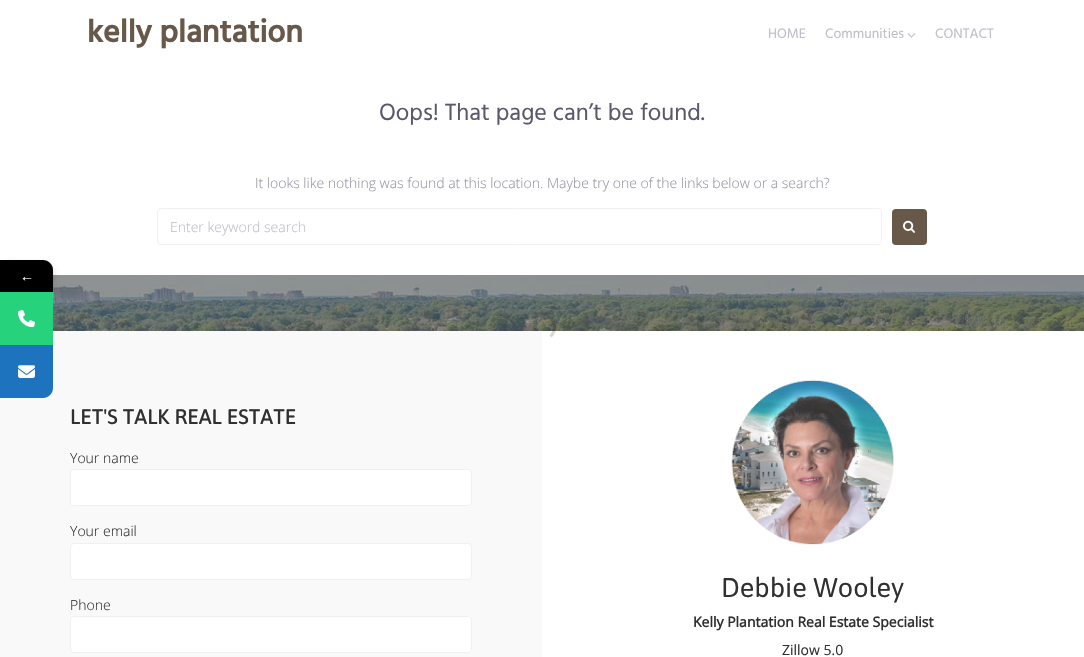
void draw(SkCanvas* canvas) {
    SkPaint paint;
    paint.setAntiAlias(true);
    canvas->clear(0xFFFFFFFF);
    canvas->drawImageRect(SkImages::DeferredFromEncodedData(SkData::MakeFromFileName("img5.png")), SkRect::MakeXYWH(53, 275, 1031, 56), SkSamplingOptions());
    paint.setColor(0x29000000);
    paint.setMaskFilter(SkMaskFilter::MakeBlur(kNormal_SkBlurStyle, 3));
    canvas->drawRoundRect(SkRect::MakeXYWH(0, 263, 53, 32), 10, 10, paint);
    paint.setMaskFilter(nullptr);
    paint.setColor(0xFF000000);
    canvas->drawPath(SkPathBuilder().moveTo(0, 260).lineTo(43, 260).cubicTo(48.5f, 260, 53, 264.5f, 53, 270).lineTo(53, 292).lineTo(0, 292).close().detach(), paint);
    SkFont font1(fontMgr->matchFamilyStyle("Liberation Serif", SkFontStyle::Normal()), 14);
    font1.setSubpixel(true);
    paint.setColor(0xFFFFFFFF);
    canvas->drawString("←", 20, 281, font1, paint);
    paint.setColor(0xFFF9F9F9);
    canvas->drawRect(SkRect::MakeXYWH(0, 331, 542, 326), paint);
    paint.setColor(0xFF26D37C);
    canvas->drawRect(SkRect::MakeXYWH(0, 292, 53, 53), paint);
    canvas->drawImageRect(SkImages::DeferredFromEncodedData(SkData::MakeFromFileName("img1.png")), SkRect::MakeXYWH(18, 310, 17, 18), SkSamplingOptions());
    paint.setColor(0xFF1E73BE);
    canvas->drawPath(SkPathBuilder().moveTo(0, 345).lineTo(53, 345).lineTo(53, 388).cubicTo(53, 393.5f, 48.5f, 398, 43, 398).lineTo(0, 398).close().detach(), paint);
    canvas->drawImageRect(SkImages::DeferredFromEncodedData(SkData::MakeFromFileName("img2.png")), SkRect::MakeXYWH(18, 365, 17, 13), SkSamplingOptions());
    SkFont font2(fontMgr->matchFamilyStyle("Hind", SkFontStyle::Bold()), 32);
    font2.setSubpixel(true);
    paint.setColor(0xFF685849);
    canvas->drawString("kelly plantation", 87, 42, font2, paint);
    SkFont font3(fontMgr->matchFamilyStyle("Hind", SkFontStyle::Normal()), 14);
    font3.setSubpixel(true);
    paint.setColor(0xFFBFBDCA);
    canvas->drawString("HOME", 768, 38, font3, paint);
    canvas->drawString("Communities", 825, 38, font3, paint);
    canvas->drawImageRect(SkImages::DeferredFromEncodedData(SkData::MakeFromFileName("img3.png")), SkRect::MakeXYWH(907, 33, 9, 5), SkSamplingOptions());
    canvas->drawString("CONTACT", 935, 38, font3, paint);
    SkFont font4(fontMgr->matchFamilyStyle("Hind", SkFontStyle::Normal()), 24);
    font4.setSubpixel(true);
    paint.setColor(0xFF5B586D);
    canvas->drawString("Oops! That page can’t be found.", 379, 120, font4, paint);
    SkFont font5(fontMgr->matchFamilyStyle("Open Sans", SkFontStyle(300, SkFontStyle::kNormal_Width, SkFontStyle::kUpright_Slant)), 14);
    font5.setSubpixel(true);
    paint.setColor(0xFF9796A3);
    canvas->drawString("It looks like nothing was found at this location. Maybe try one of the links below or a search?", 255, 188, font5, paint);
    paint.setStyle(SkPaint::kStroke_Style);
    paint.setStrokeWidth(1);
    paint.setColor(0xFFEFF0F0);
    canvas->drawRoundRect(SkRect::MakeXYWH(157.5f, 208.5f, 724, 36), 3.5f, 3.5f, paint);
    paint.setStyle(SkPaint::kFill_Style);
    paint.setColor(0xFFBFBDCA);
    canvas->drawString("Enter keyword search", 170, 232, font5, paint);
    paint.setColor(0xFF685849);
    canvas->drawRoundRect(SkRect::MakeXYWH(892, 209, 35, 36), 4, 4, paint);
    canvas->drawImageRect(SkImages::DeferredFromEncodedData(SkData::MakeFromFileName("img4.png")), SkRect::MakeXYWH(903, 220, 12, 13), SkSamplingOptions());
    SkFont font6(fontMgr->matchFamilyStyle("Asap", SkFontStyle(500, SkFontStyle::kNormal_Width, SkFontStyle::kUpright_Slant)), 21);
    font6.setSubpixel(true);
    paint.setColor(0xFF303030);
    canvas->drawString("LET'S TALK REAL ESTATE", 70, 424, font6, paint);
    canvas->drawString("Your name", 70, 463, font5, paint);
    paint.setColor(0xFFFFFFFF);
    canvas->drawRoundRect(SkRect::MakeXYWH(70.5f, 469.5f, 401, 36), 3.5f, 3.5f, paint);
    paint.setStyle(SkPaint::kStroke_Style);
    paint.setColor(0xFFEFF0F0);
    canvas->drawRoundRect(SkRect::MakeXYWH(70.5f, 469.5f, 401, 36), 3.5f, 3.5f, paint);
    paint.setStyle(SkPaint::kFill_Style);
    paint.setColor(0xFF303030);
    canvas->drawString("Your email", 70, 536, font5, paint);
    paint.setColor(0xFFFFFFFF);
    canvas->drawRoundRect(SkRect::MakeXYWH(70.5f, 543.5f, 401, 36), 3.5f, 3.5f, paint);
    paint.setStyle(SkPaint::kStroke_Style);
    paint.setColor(0xFFEFF0F0);
    canvas->drawRoundRect(SkRect::MakeXYWH(70.5f, 543.5f, 401, 36), 3.5f, 3.5f, paint);
    paint.setStyle(SkPaint::kFill_Style);
    paint.setColor(0xFF303030);
    canvas->drawString("Phone", 70, 610, font5, paint);
    paint.setColor(0xFFFFFFFF);
    canvas->drawRoundRect(SkRect::MakeXYWH(70.5f, 616.5f, 401, 36), 3.5f, 3.5f, paint);
    paint.setStyle(SkPaint::kStroke_Style);
    paint.setColor(0xFFEFF0F0);
    canvas->drawRoundRect(SkRect::MakeXYWH(70.5f, 616.5f, 401, 36), 3.5f, 3.5f, paint);
    canvas->drawImageRect(SkImages::DeferredFromEncodedData(SkData::MakeFromFileName("img6.png")), SkRect::MakeXYWH(731, 379, 163, 166), SkSamplingOptions());
    SkFont font7(fontMgr->matchFamilyStyle("Asap", SkFontStyle::Normal()), 27);
    font7.setSubpixel(true);
    paint.setStyle(SkPaint::kFill_Style);
    paint.setColor(0xFF303030);
    canvas->drawString("Debbie Wooley", 721, 597, font7, paint);
    SkFont font8(fontMgr->matchFamilyStyle("Open Sans", SkFontStyle::Bold()), 14);
    font8.setSubpixel(true);
    canvas->drawString("Kelly Plantation Real Estate Specialist", 693, 627, font8, paint);
    SkFont font9(fontMgr->matchFamilyStyle("Open Sans", SkFontStyle::Normal()), 14);
    font9.setSubpixel(true);
    canvas->drawString("Zillow 5.0", 782, 655, font9, paint);
    paint.setStyle(SkPaint::kStroke_Style);
    paint.setStrokeWidth(3);
    paint.setColor(0x3045311E);
    canvas->drawPath(SkPathBuilder().moveTo(531.5f, 317.5f).cubicTo(544, 305, 563, 324, 550.5f, 336.5f).detach(), paint);
}
